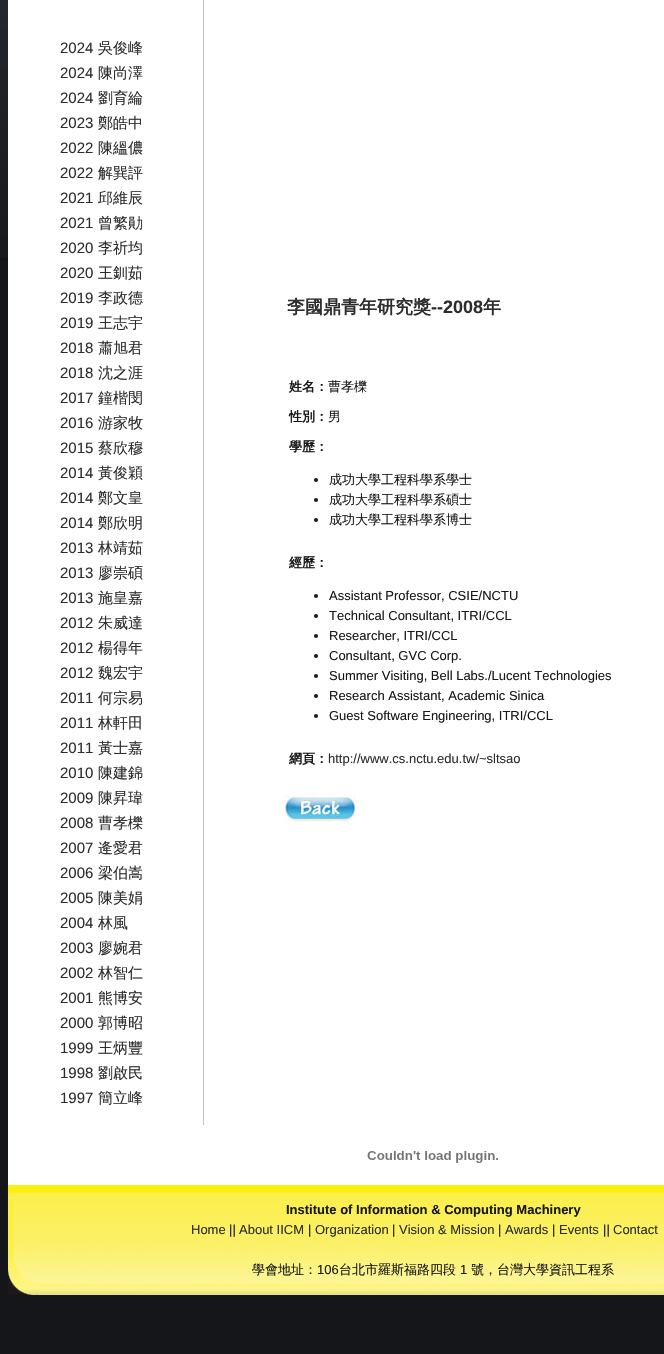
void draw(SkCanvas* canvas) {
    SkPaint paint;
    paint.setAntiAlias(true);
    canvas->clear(0xFF15161A);
    canvas->drawImageRect(SkImages::DeferredFromEncodedData(SkData::MakeFromFileName("img1.png")), SkRect::MakeXYWH(0, 0, 8, 257), SkSamplingOptions());
    paint.setColor(0xFFFFFFFF);
    canvas->drawRect(SkRect::MakeXYWH(8, 0, 656, 1185), paint);
    paint.setColor(0xFFC0C0C0);
    canvas->drawRect(SkRect::MakeXYWH(203, 0, 1, 1125), paint);
    SkFont font1(fontMgr->matchFamilyStyle("Liberation Sans", SkFontStyle::Normal()), 15);
    font1.setSubpixel(true);
    paint.setColor(0xFF2D2D2D);
    canvas->drawString("2024", 60, 53, font1, paint);
    SkFont font2(fontMgr->matchFamilyStyle("WenQuanYi Zen Hei", SkFontStyle(500, SkFontStyle::kNormal_Width, SkFontStyle::kUpright_Slant)), 15);
    font2.setSubpixel(true);
    canvas->drawString("吳俊峰", 98, 53, font2, paint);
    canvas->drawString("2024", 60, 78, font1, paint);
    canvas->drawString("陳尚澤", 98, 78, font2, paint);
    canvas->drawString("2024", 60, 103, font1, paint);
    canvas->drawString("劉育綸", 98, 103, font2, paint);
    canvas->drawString("2023", 60, 128, font1, paint);
    canvas->drawString("鄭皓中", 98, 128, font2, paint);
    canvas->drawString("2022", 60, 153, font1, paint);
    canvas->drawString("陳縕儂", 98, 153, font2, paint);
    canvas->drawString("2022", 60, 178, font1, paint);
    canvas->drawString("解巽評", 98, 178, font2, paint);
    canvas->drawString("2021", 60, 203, font1, paint);
    canvas->drawString("邱維辰", 98, 203, font2, paint);
    canvas->drawString("2021", 60, 228, font1, paint);
    canvas->drawString("曾繁勛", 98, 228, font2, paint);
    canvas->drawString("2020", 60, 253, font1, paint);
    canvas->drawString("李祈均", 98, 253, font2, paint);
    canvas->drawString("2020", 60, 278, font1, paint);
    canvas->drawString("王釧茹", 98, 278, font2, paint);
    canvas->drawString("2019", 60, 303, font1, paint);
    canvas->drawString("李政德", 98, 303, font2, paint);
    canvas->drawString("2019", 60, 328, font1, paint);
    canvas->drawString("王志宇", 98, 328, font2, paint);
    canvas->drawString("2018", 60, 353, font1, paint);
    canvas->drawString("蕭旭君", 98, 353, font2, paint);
    canvas->drawString("2018", 60, 378, font1, paint);
    canvas->drawString("沈之涯", 98, 378, font2, paint);
    canvas->drawString("2017", 60, 403, font1, paint);
    canvas->drawString("鐘楷閔", 98, 403, font2, paint);
    canvas->drawString("2016", 60, 428, font1, paint);
    canvas->drawString("游家牧", 98, 428, font2, paint);
    canvas->drawString("2015", 60, 453, font1, paint);
    canvas->drawString("蔡欣穆", 98, 453, font2, paint);
    canvas->drawString("2014", 60, 478, font1, paint);
    canvas->drawString("黃俊穎", 98, 478, font2, paint);
    canvas->drawString("2014", 60, 503, font1, paint);
    canvas->drawString("鄭文皇", 98, 503, font2, paint);
    canvas->drawString("2014", 60, 528, font1, paint);
    canvas->drawString("鄭欣明", 98, 528, font2, paint);
    canvas->drawString("2013", 60, 553, font1, paint);
    canvas->drawString("林靖茹", 98, 553, font2, paint);
    canvas->drawString("2013", 60, 578, font1, paint);
    canvas->drawString("廖崇碩", 98, 578, font2, paint);
    canvas->drawString("2013", 60, 603, font1, paint);
    canvas->drawString("施皇嘉", 98, 603, font2, paint);
    canvas->drawString("2012", 60, 628, font1, paint);
    canvas->drawString("朱威達", 98, 628, font2, paint);
    canvas->drawString("2012", 60, 653, font1, paint);
    canvas->drawString("楊得年", 98, 653, font2, paint);
    canvas->drawString("2012", 60, 678, font1, paint);
    canvas->drawString("魏宏宇", 98, 678, font2, paint);
    canvas->drawString("2011", 60, 703, font1, paint);
    canvas->drawString("何宗易", 98, 703, font2, paint);
    canvas->drawString("2011", 60, 728, font1, paint);
    canvas->drawString("林軒田", 98, 728, font2, paint);
    canvas->drawString("2011", 60, 753, font1, paint);
    canvas->drawString("黃士嘉", 98, 753, font2, paint);
    canvas->drawString("2010", 60, 778, font1, paint);
    canvas->drawString("陳建錦", 98, 778, font2, paint);
    canvas->drawString("2009", 60, 803, font1, paint);
    canvas->drawString("陳昇瑋", 98, 803, font2, paint);
    canvas->drawString("2008", 60, 828, font1, paint);
    canvas->drawString("曹孝櫟", 98, 828, font2, paint);
    canvas->drawString("2007", 60, 853, font1, paint);
    canvas->drawString("逄愛君", 98, 853, font2, paint);
    canvas->drawString("2006", 60, 878, font1, paint);
    canvas->drawString("梁伯嵩", 98, 878, font2, paint);
    canvas->drawString("2005", 60, 903, font1, paint);
    canvas->drawString("陳美娟", 98, 903, font2, paint);
    canvas->drawString("2004", 60, 928, font1, paint);
    canvas->drawString("林風", 98, 928, font2, paint);
    canvas->drawString("2003", 60, 953, font1, paint);
    canvas->drawString("廖婉君", 98, 953, font2, paint);
    canvas->drawString("2002", 60, 978, font1, paint);
    canvas->drawString("林智仁", 98, 978, font2, paint);
    canvas->drawString("2001", 60, 1003, font1, paint);
    canvas->drawString("熊博安", 98, 1003, font2, paint);
    canvas->drawString("2000", 60, 1028, font1, paint);
    canvas->drawString("郭博昭", 98, 1028, font2, paint);
    canvas->drawString("1999", 60, 1053, font1, paint);
    canvas->drawString("王炳豐", 98, 1053, font2, paint);
    canvas->drawString("1998", 60, 1078, font1, paint);
    canvas->drawString("劉啟民", 98, 1078, font2, paint);
    canvas->drawString("1997", 60, 1103, font1, paint);
    canvas->drawString("簡立峰", 98, 1103, font2, paint);
    SkFont font3(fontMgr->matchFamilyStyle("WenQuanYi Zen Hei", SkFontStyle::Bold()), 18);
    font3.setSubpixel(true);
    canvas->drawString("李國鼎青年研究獎", 287, 313, font3, paint);
    SkFont font4(fontMgr->matchFamilyStyle("Liberation Sans", SkFontStyle::Bold()), 18);
    font4.setSubpixel(true);
    canvas->drawString("--2008", 431, 313, font4, paint);
    canvas->drawString("年", 483, 313, font3, paint);
    SkFont font5(fontMgr->matchFamilyStyle("WenQuanYi Zen Hei", SkFontStyle::Bold()), 13);
    font5.setSubpixel(true);
    paint.setColor(0xFF181818);
    canvas->drawString("姓名：", 289, 391, font5, paint);
    SkFont font6(fontMgr->matchFamilyStyle("WenQuanYi Zen Hei", SkFontStyle(500, SkFontStyle::kNormal_Width, SkFontStyle::kUpright_Slant)), 13);
    font6.setSubpixel(true);
    canvas->drawString("曹孝櫟", 328, 391, font6, paint);
    canvas->drawString("性別：", 289, 421, font5, paint);
    canvas->drawString("男", 328, 421, font6, paint);
    canvas->drawString("學歷：", 289, 451, font5, paint);
    canvas->drawCircle(316, 480, 2, paint);
    canvas->drawString("成功大學工程科學系學士", 329, 484, font6, paint);
    canvas->drawCircle(316, 500, 2, paint);
    canvas->drawString("成功大學工程科學系碩士", 329, 504, font6, paint);
    canvas->drawCircle(316, 520, 2, paint);
    canvas->drawString("成功大學工程科學系博士", 329, 524, font6, paint);
    canvas->drawString("經歷：", 289, 567, font5, paint);
    canvas->drawCircle(316, 596, 2, paint);
    SkFont font7(fontMgr->matchFamilyStyle("Liberation Sans", SkFontStyle::Normal()), 13);
    font7.setSubpixel(true);
    canvas->drawString("Assistant Professor, CSIE/NCTU", 329, 600, font7, paint);
    canvas->drawCircle(316, 616, 2, paint);
    canvas->drawString("Technical Consultant, ITRI/CCL", 329, 620, font7, paint);
    canvas->drawCircle(316, 636, 2, paint);
    canvas->drawString("Researcher, ITRI/CCL", 329, 640, font7, paint);
    canvas->drawCircle(316, 656, 2, paint);
    canvas->drawString("Consultant, GVC Corp.", 329, 660, font7, paint);
    canvas->drawCircle(316, 676, 2, paint);
    canvas->drawString("Summer Visiting, Bell Labs./Lucent Technologies", 329, 680, font7, paint);
    canvas->drawCircle(316, 696, 2, paint);
    canvas->drawString("Research Assistant, Academic Sinica", 329, 700, font7, paint);
    canvas->drawCircle(316, 716, 2, paint);
    canvas->drawString("Guest Software Engineering, ITRI/CCL", 329, 720, font7, paint);
    canvas->drawString("網頁：", 289, 763, font5, paint);
    paint.setColor(0xFF2D2D2D);
    canvas->drawString("http://www.cs.nctu.edu.tw/~sltsao", 328, 763, font7, paint);
    canvas->drawImageRect(SkImages::DeferredFromEncodedData(SkData::MakeFromFileName("img2.png")), SkRect::MakeXYWH(284, 794, 72, 30), SkSamplingOptions());
    canvas->drawImageRect(SkImages::DeferredFromEncodedData(SkData::MakeFromFileName("img3.png")), SkRect::MakeXYWH(367, 1151, 131, 12), SkSamplingOptions());
    canvas->drawImageRect(SkImages::DeferredFromEncodedData(SkData::MakeFromFileName("img4.png")), SkRect::MakeXYWH(8, 1185, 656, 110), SkSamplingOptions());
    SkFont font8(fontMgr->matchFamilyStyle("Liberation Sans", SkFontStyle::Bold()), 13);
    font8.setSubpixel(true);
    paint.setColor(0xFF181818);
    canvas->drawString("Institute of Information & Computing Machinery", 286, 1214, font8, paint);
    paint.setColor(0xFF2D2D2D);
    canvas->drawString("Home", 191, 1234, font7, paint);
    paint.setColor(0xFF181818);
    canvas->drawString("||", 229, 1234, font7, paint);
    paint.setColor(0xFF2D2D2D);
    canvas->drawString("About IICM", 239, 1234, font7, paint);
    paint.setColor(0xFF181818);
    canvas->drawString("|", 308, 1234, font7, paint);
    paint.setColor(0xFF2D2D2D);
    canvas->drawString("Organization", 315, 1234, font7, paint);
    paint.setColor(0xFF181818);
    canvas->drawString("|", 392, 1234, font7, paint);
    paint.setColor(0xFF2D2D2D);
    canvas->drawString("Vision & Mission", 399, 1234, font7, paint);
    paint.setColor(0xFF181818);
    canvas->drawString("|", 498, 1234, font7, paint);
    paint.setColor(0xFF2D2D2D);
    canvas->drawString("Awards", 505, 1234, font7, paint);
    paint.setColor(0xFF181818);
    canvas->drawString("|", 552, 1234, font7, paint);
    paint.setColor(0xFF2D2D2D);
    canvas->drawString("Events", 559, 1234, font7, paint);
    paint.setColor(0xFF181818);
    canvas->drawString("||", 603, 1234, font7, paint);
    paint.setColor(0xFF2D2D2D);
    canvas->drawString("Contact", 613, 1234, font7, paint);
    paint.setColor(0xFF181818);
    canvas->drawString("學會地址：", 252, 1274, font6, paint);
    canvas->drawString("106", 317, 1274, font7, paint);
    canvas->drawString("台北市羅斯福路四段", 339, 1274, font6, paint);
    canvas->drawString("1", 460, 1274, font7, paint);
    canvas->drawString("號，台灣大學資訊工程系", 471, 1274, font6, paint);
}
